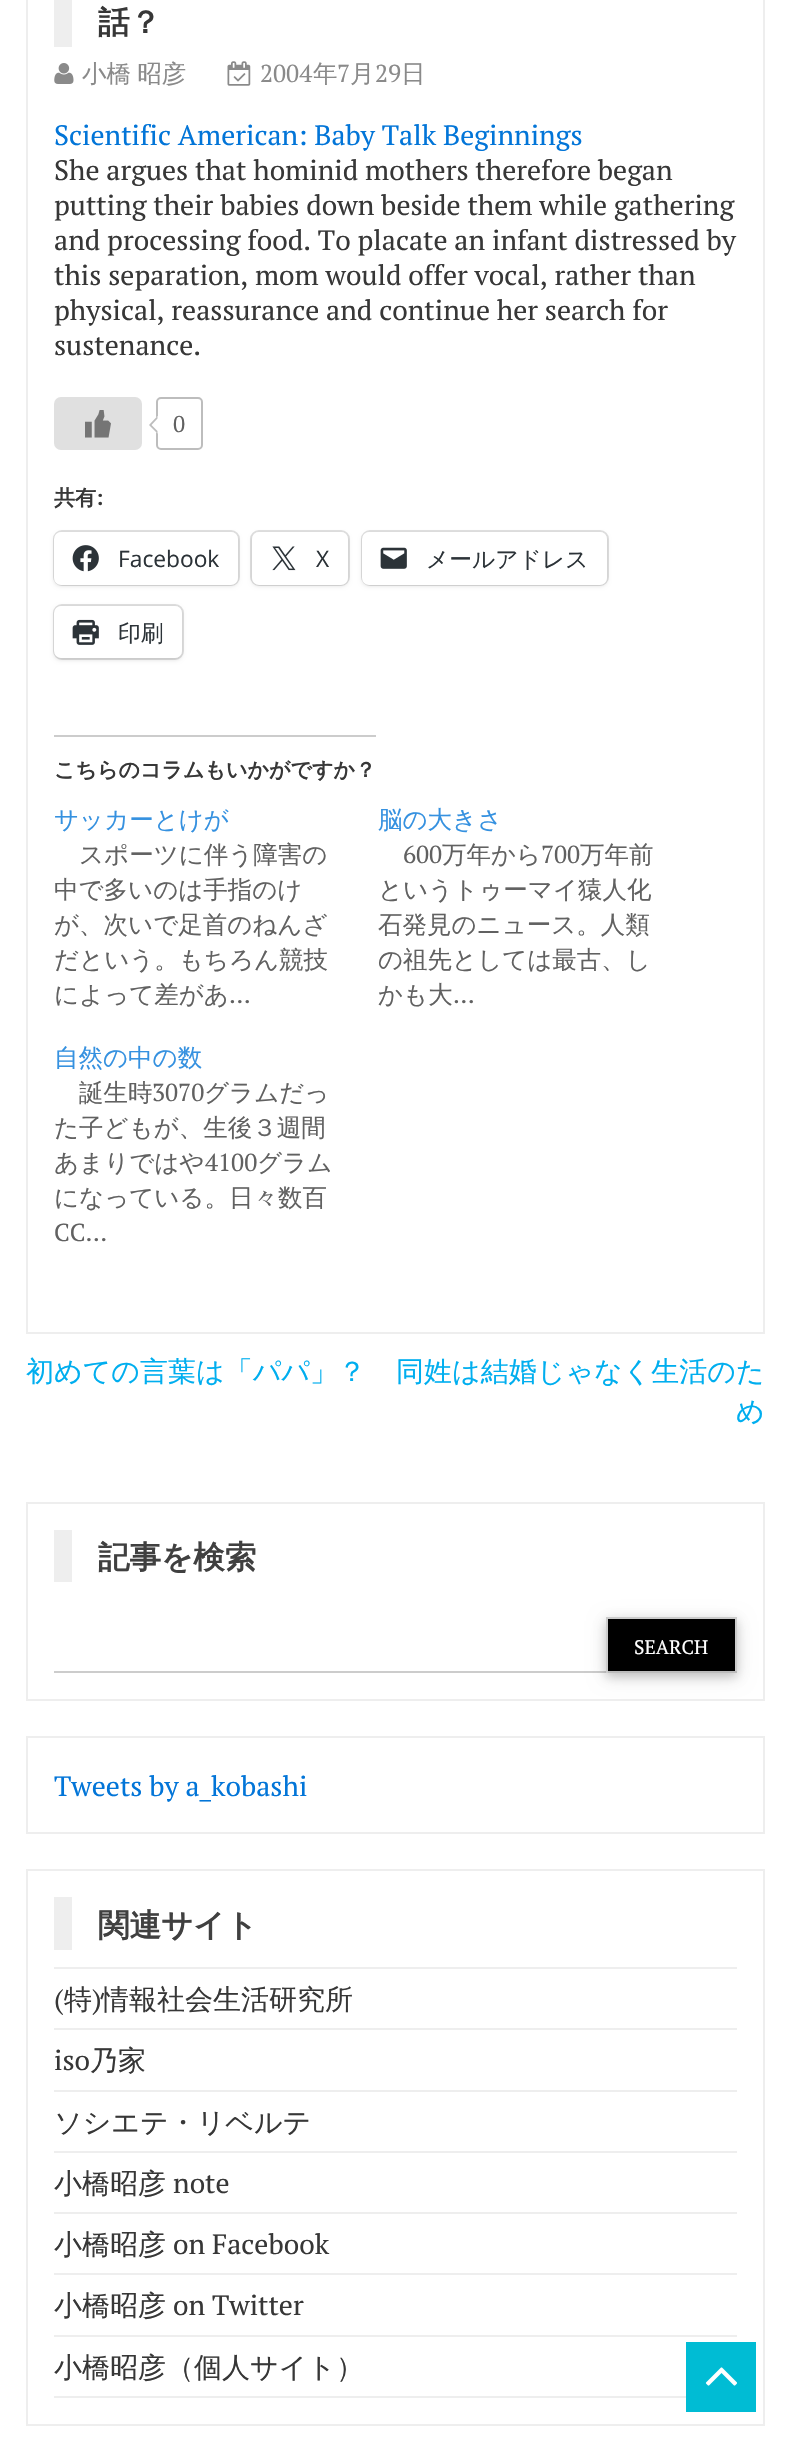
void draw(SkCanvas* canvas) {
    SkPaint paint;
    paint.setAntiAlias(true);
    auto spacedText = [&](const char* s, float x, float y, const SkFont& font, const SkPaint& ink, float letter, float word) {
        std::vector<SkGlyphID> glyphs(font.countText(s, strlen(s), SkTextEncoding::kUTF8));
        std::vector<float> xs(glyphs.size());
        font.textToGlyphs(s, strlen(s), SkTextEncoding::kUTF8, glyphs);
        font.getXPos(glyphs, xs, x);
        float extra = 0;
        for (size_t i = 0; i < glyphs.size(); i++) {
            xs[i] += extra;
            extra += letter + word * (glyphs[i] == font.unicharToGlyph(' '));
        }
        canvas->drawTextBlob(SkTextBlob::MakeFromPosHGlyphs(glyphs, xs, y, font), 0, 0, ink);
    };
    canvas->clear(0xFFFFFFFF);
    paint.setStyle(SkPaint::kStroke_Style);
    paint.setStrokeWidth(2);
    paint.setColor(0xFFEEEEEE);
    canvas->drawRect(SkRect::MakeXYWH(27, -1, 737, 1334), paint);
    paint.setStyle(SkPaint::kFill_Style);
    canvas->drawRect(SkRect::MakeXYWH(54, 0, 18, 47), paint);
    SkFont font1(fontMgr->matchFamilyStyle("WenQuanYi Zen Hei", SkFontStyle::Bold()), 31.5f);
    font1.setSubpixel(true);
    paint.setColor(0xFF373737);
    canvas->drawString("話？", 98, 33, font1, paint);
    canvas->drawImageRect(SkImages::DeferredFromEncodedData(SkData::MakeFromFileName("img1.png")), SkRect::MakeXYWH(54, 63, 20, 21), SkSamplingOptions());
    SkFont font2(fontMgr->matchFamilyStyle("WenQuanYi Zen Hei", SkFontStyle(500, SkFontStyle::kNormal_Width, SkFontStyle::kUpright_Slant)), 24.5f);
    font2.setSubpixel(true);
    paint.setColor(0xFF8A8A8A);
    spacedText("小橋 昭彦", 82, 82, font2, paint, 0, -1);
    canvas->drawImageRect(SkImages::DeferredFromEncodedData(SkData::MakeFromFileName("img2.png")), SkRect::MakeXYWH(227, 61, 24, 25), SkSamplingOptions());
    SkFont font3(fontMgr->matchFamilyStyle("PT Serif", SkFontStyle::Normal()), 24.5f);
    font3.setSubpixel(true);
    canvas->drawString("2004", 260, 82, font3, paint);
    canvas->drawString("年", 313, 82, font2, paint);
    canvas->drawString("7", 337, 82, font3, paint);
    canvas->drawString("月", 350, 82, font2, paint);
    canvas->drawString("29", 375, 82, font3, paint);
    canvas->drawString("日", 401, 82, font2, paint);
    SkFont font4(fontMgr->matchFamilyStyle("PT Serif", SkFontStyle::Normal()), 28);
    font4.setSubpixel(true);
    paint.setColor(0xFF0275D8);
    canvas->drawString("Scientific American: Baby Talk Beginnings", 54, 145, font4, paint);
    paint.setColor(0xFF373737);
    canvas->drawString("She argues that hominid mothers therefore began", 54, 180, font4, paint);
    canvas->drawString("putting their babies down beside them while gathering", 54, 215, font4, paint);
    canvas->drawString("and processing food. To placate an infant distressed by", 54, 250, font4, paint);
    canvas->drawString("this separation, mom would offer vocal, rather than", 54, 285, font4, paint);
    canvas->drawString("physical, reassurance and continue her search for", 54, 320, font4, paint);
    canvas->drawString("sustenance.", 54, 355, font4, paint);
    paint.setColor(0xFFE0E0E0);
    canvas->drawRoundRect(SkRect::MakeXYWH(54, 397, 88, 53), 7, 7, paint);
    canvas->drawImageRect(SkImages::DeferredFromEncodedData(SkData::MakeFromFileName("img3.png")), SkRect::MakeXYWH(85, 410, 26, 28), SkSamplingOptions());
    paint.setStyle(SkPaint::kStroke_Style);
    paint.setColor(0xFFBDBDBD);
    canvas->drawRoundRect(SkRect::MakeXYWH(157, 398, 45, 51), 4, 4, paint);
    paint.setStyle(SkPaint::kFill_Style);
    paint.setColor(0xFFFFFFFF);
    canvas->drawPath(SkPathBuilder().moveTo(157.5f, 416).lineTo(166, 425).lineTo(157.5f, 433.5f).lineTo(149, 425).close().detach(), paint);
    paint.setColor(0xFFBDBDBD);
    canvas->drawPath(SkPathBuilder().moveTo(157.5f, 433.5f).lineTo(149, 425).lineTo(151.5f, 425).lineTo(157.5f, 431).close().moveTo(149, 425).lineTo(157.5f, 416).lineTo(157.5f, 418.5f).lineTo(151.5f, 425).close().detach(), paint);
    SkFont font5(fontMgr->matchFamilyStyle("PT Serif", SkFontStyle::Normal()), 22.75f);
    font5.setSubpixel(true);
    paint.setColor(0xFF616161);
    canvas->drawString("0", 173, 432, font5, paint);
    SkFont font6(fontMgr->matchFamilyStyle("WenQuanYi Zen Hei", SkFontStyle::Bold()), 21);
    font6.setSubpixel(true);
    paint.setColor(0xFF373737);
    canvas->drawString("共有", 54, 505, font6, paint);
    SkFont font7(fontMgr->matchFamilyStyle("PT Serif", SkFontStyle::Bold()), 21);
    font7.setSubpixel(true);
    canvas->drawString(":", 96, 505, font7, paint);
    paint.setStyle(SkPaint::kStroke_Style);
    paint.setColor(0xFFE0E0E0);
    canvas->drawRoundRect(SkRect::MakeXYWH(54, 531, 185, 54), 8, 8, paint);
    paint.setStyle(SkPaint::kFill_Style);
    paint.setColor(0x1F000000);
    paint.setMaskFilter(SkMaskFilter::MakeBlur(kNormal_SkBlurStyle, 2));
    canvas->drawRoundRect(SkRect::MakeXYWH(54, 534, 184, 52), 7, 7, paint);
    paint.setMaskFilter(nullptr);
    paint.setColor(0xFFFFFFFF);
    canvas->drawRoundRect(SkRect::MakeXYWH(54, 532, 184, 53), 7, 7, paint);
    canvas->drawImageRect(SkImages::DeferredFromEncodedData(SkData::MakeFromFileName("img4.png")), SkRect::MakeXYWH(72, 545, 27, 27), SkSamplingOptions());
    SkFont font8(fontMgr->matchFamilyStyle("Open Sans", SkFontStyle::Normal()), 22.75f);
    font8.setSubpixel(true);
    paint.setColor(0xFF2C3338);
    canvas->drawString("Facebook", 118, 567, font8, paint);
    paint.setStyle(SkPaint::kStroke_Style);
    paint.setColor(0xFFE0E0E0);
    canvas->drawRoundRect(SkRect::MakeXYWH(251, 531, 98, 54), 8, 8, paint);
    paint.setStyle(SkPaint::kFill_Style);
    paint.setColor(0x1F000000);
    paint.setMaskFilter(SkMaskFilter::MakeBlur(kNormal_SkBlurStyle, 2));
    canvas->drawRoundRect(SkRect::MakeXYWH(252, 534, 96, 52), 7, 7, paint);
    paint.setMaskFilter(nullptr);
    paint.setColor(0xFFFFFFFF);
    canvas->drawRoundRect(SkRect::MakeXYWH(252, 532, 96, 53), 7, 7, paint);
    canvas->drawImageRect(SkImages::DeferredFromEncodedData(SkData::MakeFromFileName("img5.png")), SkRect::MakeXYWH(272, 546, 24, 25), SkSamplingOptions());
    paint.setColor(0xFF2C3338);
    canvas->drawString("X", 316, 567, font8, paint);
    paint.setStyle(SkPaint::kStroke_Style);
    paint.setColor(0xFFE0E0E0);
    canvas->drawRoundRect(SkRect::MakeXYWH(362, 531, 246, 54), 8, 8, paint);
    paint.setStyle(SkPaint::kFill_Style);
    paint.setColor(0x1F000000);
    paint.setMaskFilter(SkMaskFilter::MakeBlur(kNormal_SkBlurStyle, 2));
    canvas->drawRoundRect(SkRect::MakeXYWH(362, 534, 245, 52), 7, 7, paint);
    paint.setMaskFilter(nullptr);
    paint.setColor(0xFFFFFFFF);
    canvas->drawRoundRect(SkRect::MakeXYWH(362, 532, 245, 53), 7, 7, paint);
    canvas->drawImageRect(SkImages::DeferredFromEncodedData(SkData::MakeFromFileName("img6.png")), SkRect::MakeXYWH(380, 547, 27, 22), SkSamplingOptions());
    SkFont font9(fontMgr->matchFamilyStyle("WenQuanYi Zen Hei", SkFontStyle(500, SkFontStyle::kNormal_Width, SkFontStyle::kUpright_Slant)), 22.75f);
    font9.setSubpixel(true);
    paint.setColor(0xFF2C3338);
    canvas->drawString("メールアドレス", 426, 567, font9, paint);
    paint.setStyle(SkPaint::kStroke_Style);
    paint.setColor(0xFFE0E0E0);
    canvas->drawRoundRect(SkRect::MakeXYWH(54, 605, 129, 54), 8, 8, paint);
    paint.setStyle(SkPaint::kFill_Style);
    paint.setColor(0x1F000000);
    paint.setMaskFilter(SkMaskFilter::MakeBlur(kNormal_SkBlurStyle, 2));
    canvas->drawRoundRect(SkRect::MakeXYWH(54, 607, 128, 53), 7, 7, paint);
    paint.setMaskFilter(nullptr);
    paint.setColor(0xFFFFFFFF);
    canvas->drawRoundRect(SkRect::MakeXYWH(54, 606, 128, 52), 7, 7, paint);
    canvas->drawImageRect(SkImages::DeferredFromEncodedData(SkData::MakeFromFileName("img7.png")), SkRect::MakeXYWH(72, 619, 27, 26), SkSamplingOptions());
    paint.setColor(0xFF2C3338);
    canvas->drawString("印刷", 118, 641, font9, paint);
    paint.setColor(0xFFCCCCCC);
    canvas->drawRect(SkRect::MakeXYWH(54, 735, 322, 2), paint);
    paint.setColor(0xFF373737);
    canvas->drawString("こちらのコラムもいかがですか？", 54, 777, font6, paint);
    paint.setColor(0xFF3591E0);
    canvas->drawString("サッカーとけが", 54, 828, font2, paint);
    paint.setColor(0xFF616161);
    canvas->drawString("スポーツに伴う障害の", 79, 863, font2, paint);
    canvas->drawString("中で多いのは手指のけ", 54, 898, font2, paint);
    canvas->drawString("が、次いで足首のねんざ", 54, 933, font2, paint);
    canvas->drawString("だという。もちろん競技", 54, 968, font2, paint);
    canvas->drawString("によって差があ", 54, 1003, font2, paint);
    canvas->drawString("…", 229, 1003, font3, paint);
    paint.setColor(0xFF3591E0);
    canvas->drawString("脳の大きさ", 378, 828, font2, paint);
    paint.setColor(0xFF616161);
    canvas->drawString("600", 403, 863, font3, paint);
    canvas->drawString("万年から", 442, 863, font2, paint);
    canvas->drawString("700", 541, 863, font3, paint);
    canvas->drawString("万年前", 580, 863, font2, paint);
    canvas->drawString("というトゥーマイ猿人化", 378, 898, font2, paint);
    canvas->drawString("石発見のニュース。人類", 378, 933, font2, paint);
    canvas->drawString("の祖先としては最古、し", 378, 968, font2, paint);
    canvas->drawString("かも大", 378, 1003, font2, paint);
    canvas->drawString("…", 453, 1003, font3, paint);
    paint.setColor(0xFF3591E0);
    canvas->drawString("自然の中の数", 54, 1066, font2, paint);
    paint.setColor(0xFF616161);
    canvas->drawString("誕生時", 79, 1101, font2, paint);
    canvas->drawString("3070", 152, 1101, font3, paint);
    canvas->drawString("グラムだっ", 204, 1101, font2, paint);
    canvas->drawString("た子どもが、生後３週間", 54, 1136, font2, paint);
    canvas->drawString("あまりではや", 54, 1171, font2, paint);
    canvas->drawString("4100", 205, 1171, font3, paint);
    canvas->drawString("グラム", 257, 1171, font2, paint);
    canvas->drawString("になっている。日々数百", 54, 1206, font2, paint);
    canvas->drawString("CC…", 54, 1241, font3, paint);
    SkFont font10(fontMgr->matchFamilyStyle("WenQuanYi Zen Hei", SkFontStyle(500, SkFontStyle::kNormal_Width, SkFontStyle::kUpright_Slant)), 28);
    font10.setSubpixel(true);
    paint.setColor(0xFF00AEEF);
    canvas->drawString("初めての言葉は「パパ」？", 26, 1381, font10, paint);
    canvas->drawString("同姓は結婚じゃなく生活のた", 396, 1381, font10, paint);
    canvas->drawString("め", 736, 1421, font10, paint);
    paint.setStyle(SkPaint::kStroke_Style);
    paint.setColor(0xFFEEEEEE);
    canvas->drawRect(SkRect::MakeXYWH(27, 1503, 737, 197), paint);
    paint.setStyle(SkPaint::kFill_Style);
    canvas->drawRect(SkRect::MakeXYWH(54, 1530, 18, 52), paint);
    paint.setColor(0xFF404040);
    canvas->drawString("記事を検索", 98, 1568, font1, paint);
    paint.setColor(0xFFCCCCCC);
    canvas->drawRect(SkRect::MakeXYWH(54, 1671, 552, 2), paint);
    paint.setColor(0x1F000000);
    paint.setMaskFilter(SkMaskFilter::MakeBlur(kNormal_SkBlurStyle, 9));
    canvas->drawRect(SkRect::MakeXYWH(606, 1621, 131, 56), paint);
    paint.setMaskFilter(nullptr);
    paint.setColor(0x29000000);
    paint.setMaskFilter(SkMaskFilter::MakeBlur(kNormal_SkBlurStyle, 4.5f));
    canvas->drawRect(SkRect::MakeXYWH(606, 1621, 131, 56), paint);
    paint.setMaskFilter(nullptr);
    paint.setColor(0xFF000000);
    canvas->drawRect(SkRect::MakeXYWH(608, 1619, 127, 52), paint);
    paint.setColor(0xFFCCCCCC);
    canvas->drawRect(SkRect::MakeXYWH(606, 1617, 131, 2), paint);
    canvas->drawRect(SkRect::MakeXYWH(735, 1617, 2, 56), paint);
    paint.setColor(0xFFBBBBBB);
    canvas->drawRect(SkRect::MakeXYWH(606, 1671, 131, 2), paint);
    paint.setColor(0xFFCCCCCC);
    canvas->drawRect(SkRect::MakeXYWH(606, 1617, 2, 56), paint);
    SkFont font11(fontMgr->matchFamilyStyle("PT Serif", SkFontStyle::Normal()), 19.5f);
    font11.setSubpixel(true);
    paint.setColor(0xFFFFFFFF);
    canvas->drawString("SEARCH", 634, 1654, font11, paint);
    paint.setStyle(SkPaint::kStroke_Style);
    paint.setColor(0xFFEEEEEE);
    canvas->drawRect(SkRect::MakeXYWH(27, 1737, 737, 96), paint);
    paint.setStyle(SkPaint::kFill_Style);
    paint.setColor(0xFF0275D8);
    canvas->drawString("Tweets by a_kobashi", 54, 1796, font4, paint);
    paint.setStyle(SkPaint::kStroke_Style);
    paint.setColor(0xFFEEEEEE);
    canvas->drawRect(SkRect::MakeXYWH(27, 1870, 737, 555), paint);
    paint.setStyle(SkPaint::kFill_Style);
    canvas->drawRect(SkRect::MakeXYWH(54, 1897, 18, 53), paint);
    paint.setColor(0xFF404040);
    canvas->drawString("関連サイト", 98, 1936, font1, paint);
    paint.setColor(0xFFEEEEEE);
    canvas->drawRect(SkRect::MakeXYWH(54, 1967, 683, 2), paint);
    canvas->drawRect(SkRect::MakeXYWH(54, 2028, 683, 2), paint);
    paint.setColor(0xFF373737);
    canvas->drawString("(", 54, 2009, font4, paint);
    canvas->drawString("特", 64, 2009, font10, paint);
    canvas->drawString(")", 92, 2009, font4, paint);
    canvas->drawString("情報社会生活研究所", 101, 2009, font10, paint);
    paint.setColor(0xFFEEEEEE);
    canvas->drawRect(SkRect::MakeXYWH(54, 2090, 683, 2), paint);
    paint.setColor(0xFF373737);
    canvas->drawString("iso", 54, 2070, font4, paint);
    canvas->drawString("乃家", 90, 2070, font10, paint);
    paint.setColor(0xFFEEEEEE);
    canvas->drawRect(SkRect::MakeXYWH(54, 2151, 683, 2), paint);
    paint.setColor(0xFF373737);
    canvas->drawString("ソシエテ・リベルテ", 54, 2132, font10, paint);
    paint.setColor(0xFFEEEEEE);
    canvas->drawRect(SkRect::MakeXYWH(54, 2212, 683, 2), paint);
    paint.setColor(0xFF373737);
    canvas->drawString("小橋昭彦", 54, 2193, font10, paint);
    canvas->drawString("note", 173, 2193, font4, paint);
    paint.setColor(0xFFEEEEEE);
    canvas->drawRect(SkRect::MakeXYWH(54, 2273, 683, 2), paint);
    paint.setColor(0xFF373737);
    canvas->drawString("小橋昭彦", 54, 2254, font10, paint);
    canvas->drawString("on Facebook", 173, 2254, font4, paint);
    paint.setColor(0xFFEEEEEE);
    canvas->drawRect(SkRect::MakeXYWH(54, 2335, 683, 2), paint);
    paint.setColor(0xFF373737);
    canvas->drawString("小橋昭彦", 54, 2315, font10, paint);
    canvas->drawString("on Twitter", 173, 2315, font4, paint);
    paint.setColor(0xFFEEEEEE);
    canvas->drawRect(SkRect::MakeXYWH(54, 2396, 632, 2), paint);
    paint.setColor(0xFF373737);
    canvas->drawString("小橋昭彦（個人サイト）", 54, 2377, font10, paint);
    paint.setColor(0xFF00BCD4);
    canvas->drawRect(SkRect::MakeXYWH(686, 2342, 70, 70), paint);
    canvas->drawImageRect(SkImages::DeferredFromEncodedData(SkData::MakeFromFileName("img8.png")), SkRect::MakeXYWH(705, 2367, 32, 19), SkSamplingOptions());
}
